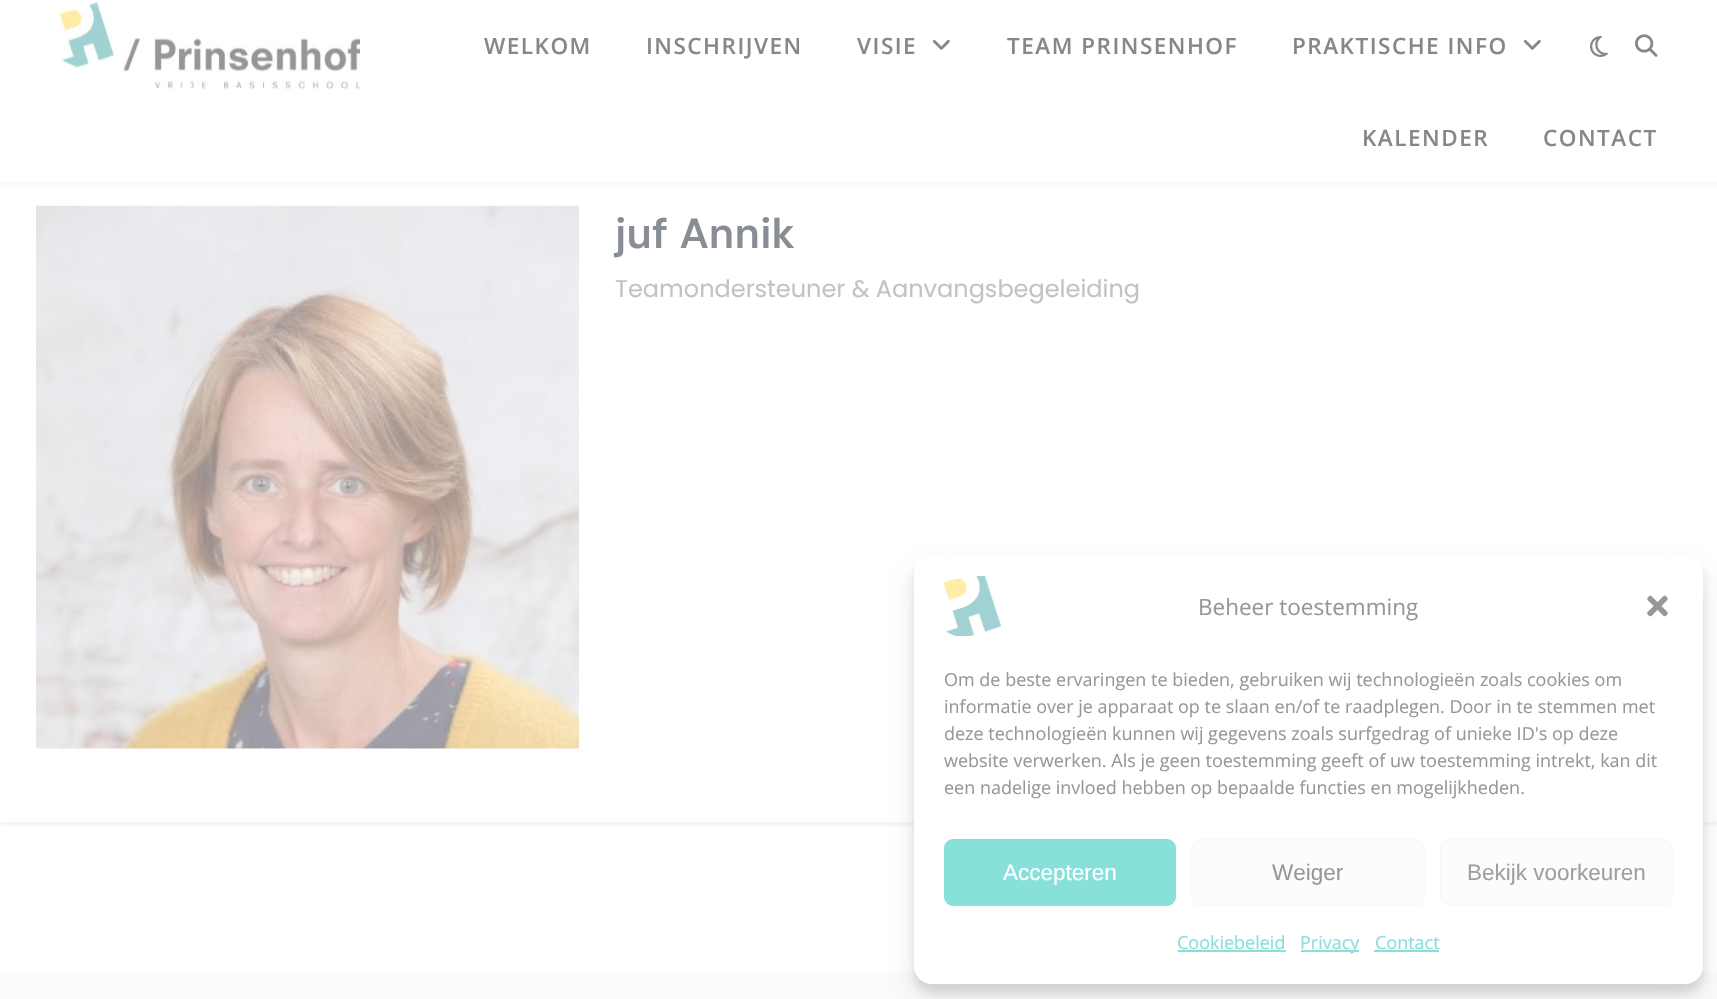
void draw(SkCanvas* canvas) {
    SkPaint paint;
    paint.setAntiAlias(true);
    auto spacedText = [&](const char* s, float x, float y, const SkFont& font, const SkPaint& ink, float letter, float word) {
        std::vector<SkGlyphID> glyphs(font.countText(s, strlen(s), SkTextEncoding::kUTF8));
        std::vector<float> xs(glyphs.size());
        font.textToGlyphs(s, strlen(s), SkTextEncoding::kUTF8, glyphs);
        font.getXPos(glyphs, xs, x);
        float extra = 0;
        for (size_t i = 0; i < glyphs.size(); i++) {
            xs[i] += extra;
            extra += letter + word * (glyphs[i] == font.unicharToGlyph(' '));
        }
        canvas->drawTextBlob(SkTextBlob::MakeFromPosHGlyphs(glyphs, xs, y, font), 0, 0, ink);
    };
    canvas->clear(0xFFFFFFFF);
    paint.setColor(0x1A878787);
    paint.setMaskFilter(SkMaskFilter::MakeBlur(kNormal_SkBlurStyle, 4));
    canvas->drawRect(SkRect::MakeXYWH(0, 2, 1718, 181), paint);
    paint.setMaskFilter(nullptr);
    canvas->save();
    canvas->clipRect(SkRect::MakeXYWH(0, 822, 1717, 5));
    paint.setColor(0x29878787);
    paint.setMaskFilter(SkMaskFilter::MakeBlur(kNormal_SkBlurStyle, 3));
    canvas->drawRect(SkRect::MakeXYWH(0, 171, 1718, 653), paint);
    paint.setMaskFilter(nullptr);
    canvas->restore();
    paint.setColor(0xFFFFFFFF);
    canvas->drawRect(SkRect::MakeXYWH(0, 0, 1717, 182), paint);
    canvas->drawImageRect(SkImages::DeferredFromEncodedData(SkData::MakeFromFileName("img1.png")), SkRect::MakeXYWH(60, 2, 300, 87), SkSamplingOptions());
    canvas->drawImageRect(SkImages::DeferredFromEncodedData(SkData::MakeFromFileName("img2.png")), SkRect::MakeXYWH(1590, 36, 18, 21), SkSamplingOptions());
    canvas->drawImageRect(SkImages::DeferredFromEncodedData(SkData::MakeFromFileName("img3.png")), SkRect::MakeXYWH(1635, 34, 23, 23), SkSamplingOptions());
    SkFont font1(fontMgr->matchFamilyStyle("Open Sans", SkFontStyle(600, SkFontStyle::kNormal_Width, SkFontStyle::kUpright_Slant)), 22.5f);
    font1.setSubpixel(true);
    paint.setColor(0xFF878787);
    spacedText("WELKOM", 484, 54, font1, paint, 1.5f, 0);
    spacedText("INSCHRIJVEN", 646, 54, font1, paint, 1.5f, 0);
    spacedText("VISIE", 857, 54, font1, paint, 1.5f, 0);
    canvas->drawImageRect(SkImages::DeferredFromEncodedData(SkData::MakeFromFileName("img4.png")), SkRect::MakeXYWH(932, 39, 18, 11), SkSamplingOptions());
    spacedText("TEAM PRINSENHOF", 1007, 54, font1, paint, 1.5f, 0);
    spacedText("PRAKTISCHE INFO", 1292, 54, font1, paint, 1.5f, 0);
    canvas->drawImageRect(SkImages::DeferredFromEncodedData(SkData::MakeFromFileName("img4.png")), SkRect::MakeXYWH(1523, 39, 18, 11), SkSamplingOptions());
    spacedText("KALENDER", 1362, 146, font1, paint, 1.5f, 0);
    spacedText("CONTACT", 1543, 146, font1, paint, 1.5f, 0);
    canvas->drawImageRect(SkImages::DeferredFromEncodedData(SkData::MakeFromFileName("img5.png")), SkRect::MakeXYWH(36, 205, 543, 544), SkSamplingOptions());
    SkFont font2(fontMgr->matchFamilyStyle("DM Sans", SkFontStyle(600, SkFontStyle::kNormal_Width, SkFontStyle::kUpright_Slant)), 42);
    font2.setSubpixel(true);
    paint.setColor(0xFF898D95);
    spacedText("juf Annik", 615, 248, font2, paint, 0, 1);
    SkFont font3(fontMgr->matchFamilyStyle("Poppins", SkFontStyle::Normal()), 24);
    font3.setSubpixel(true);
    paint.setColor(0xFFC3C3C3);
    canvas->drawString("Teamondersteuner & Aanvangsbegeleiding", 615, 297, font3, paint);
    paint.setColor(0xFFFBFBFB);
    canvas->drawRect(SkRect::MakeXYWH(0, 972, 1717, 27), paint);
    paint.setColor(0x3B878787);
    paint.setMaskFilter(SkMaskFilter::MakeBlur(kNormal_SkBlurStyle, 4.5f));
    canvas->drawRoundRect(SkRect::MakeXYWH(914, 563, 789, 430), 18, 18, paint);
    paint.setMaskFilter(nullptr);
    paint.setColor(0x30878787);
    paint.setMaskFilter(SkMaskFilter::MakeBlur(kNormal_SkBlurStyle, 15));
    canvas->drawRoundRect(SkRect::MakeXYWH(914, 569, 789, 430), 18, 18, paint);
    paint.setMaskFilter(nullptr);
    paint.setColor(0xFFFFFFFF);
    canvas->drawRoundRect(SkRect::MakeXYWH(914, 554, 789, 430), 18, 18, paint);
    canvas->drawImageRect(SkImages::DeferredFromEncodedData(SkData::MakeFromFileName("img6.png")), SkRect::MakeXYWH(943, 576, 59, 60), SkSamplingOptions());
    SkFont font4(fontMgr->matchFamilyStyle("Open Sans", SkFontStyle::Normal()), 22.5f);
    font4.setSubpixel(true);
    paint.setColor(0xFF979797);
    canvas->drawString("Beheer toestemming", 1198, 615, font4, paint);
    canvas->drawImageRect(SkImages::DeferredFromEncodedData(SkData::MakeFromFileName("img7.png")), SkRect::MakeXYWH(1647, 595, 21, 22), SkSamplingOptions());
    SkFont font5(fontMgr->matchFamilyStyle("Open Sans", SkFontStyle::Normal()), 18);
    font5.setSubpixel(true);
    canvas->drawString("Om de beste ervaringen te bieden, gebruiken wij technologieën zoals cookies om", 944, 686, font5, paint);
    canvas->drawString("informatie over je apparaat op te slaan en/of te raadplegen. Door in te stemmen met", 944, 713, font5, paint);
    canvas->drawString("deze technologieën kunnen wij gegevens zoals surfgedrag of unieke ID's op deze", 944, 740, font5, paint);
    canvas->drawString("website verwerken. Als je geen toestemming geeft of uw toestemming intrekt, kan dit", 944, 767, font5, paint);
    canvas->drawString("een nadelige invloed hebben op bepaalde functies en mogelijkheden.", 944, 794, font5, paint);
    paint.setColor(0xFF87E0D9);
    canvas->drawRoundRect(SkRect::MakeXYWH(945, 840, 230, 65), 8, 8, paint);
    paint.setStyle(SkPaint::kStroke_Style);
    paint.setStrokeWidth(2);
    canvas->drawRoundRect(SkRect::MakeXYWH(945, 840, 230, 65), 8, 8, paint);
    SkFont font6(fontMgr->matchFamilyStyle("Liberation Sans", SkFontStyle::Normal()), 22.5f);
    font6.setSubpixel(true);
    paint.setStyle(SkPaint::kFill_Style);
    paint.setColor(0xFFFFFFFF);
    canvas->drawString("Accepteren", 1003, 880, font6, paint);
    paint.setColor(0xFFFCFCFC);
    canvas->drawRoundRect(SkRect::MakeXYWH(1192, 840, 232, 65), 8, 8, paint);
    paint.setStyle(SkPaint::kStroke_Style);
    paint.setColor(0xFFF9F9F9);
    canvas->drawRoundRect(SkRect::MakeXYWH(1192, 840, 232, 65), 8, 8, paint);
    paint.setStyle(SkPaint::kFill_Style);
    paint.setColor(0xFF979797);
    canvas->drawString("Weiger", 1272, 880, font6, paint);
    paint.setColor(0xFFFCFCFC);
    canvas->drawRoundRect(SkRect::MakeXYWH(1441, 840, 231, 65), 8, 8, paint);
    paint.setStyle(SkPaint::kStroke_Style);
    paint.setColor(0xFFF9F9F9);
    canvas->drawRoundRect(SkRect::MakeXYWH(1441, 840, 231, 65), 8, 8, paint);
    paint.setStyle(SkPaint::kFill_Style);
    paint.setColor(0xFF9F9F9F);
    canvas->drawString("Bekijk voorkeuren", 1467, 880, font6, paint);
    paint.setColor(0xFF87E0D9);
    canvas->drawString("Cookiebeleid", 1177, 949, font5, paint);
    canvas->drawRect(SkRect::MakeXYWH(1178, 950, 108, 2), paint);
    canvas->drawRect(SkRect::MakeXYWH(1301, 950, 58, 2), paint);
    canvas->drawString("Privacy", 1300, 949, font5, paint);
    canvas->drawString("Contact", 1375, 949, font5, paint);
    canvas->drawRect(SkRect::MakeXYWH(1374, 950, 65, 2), paint);
}
